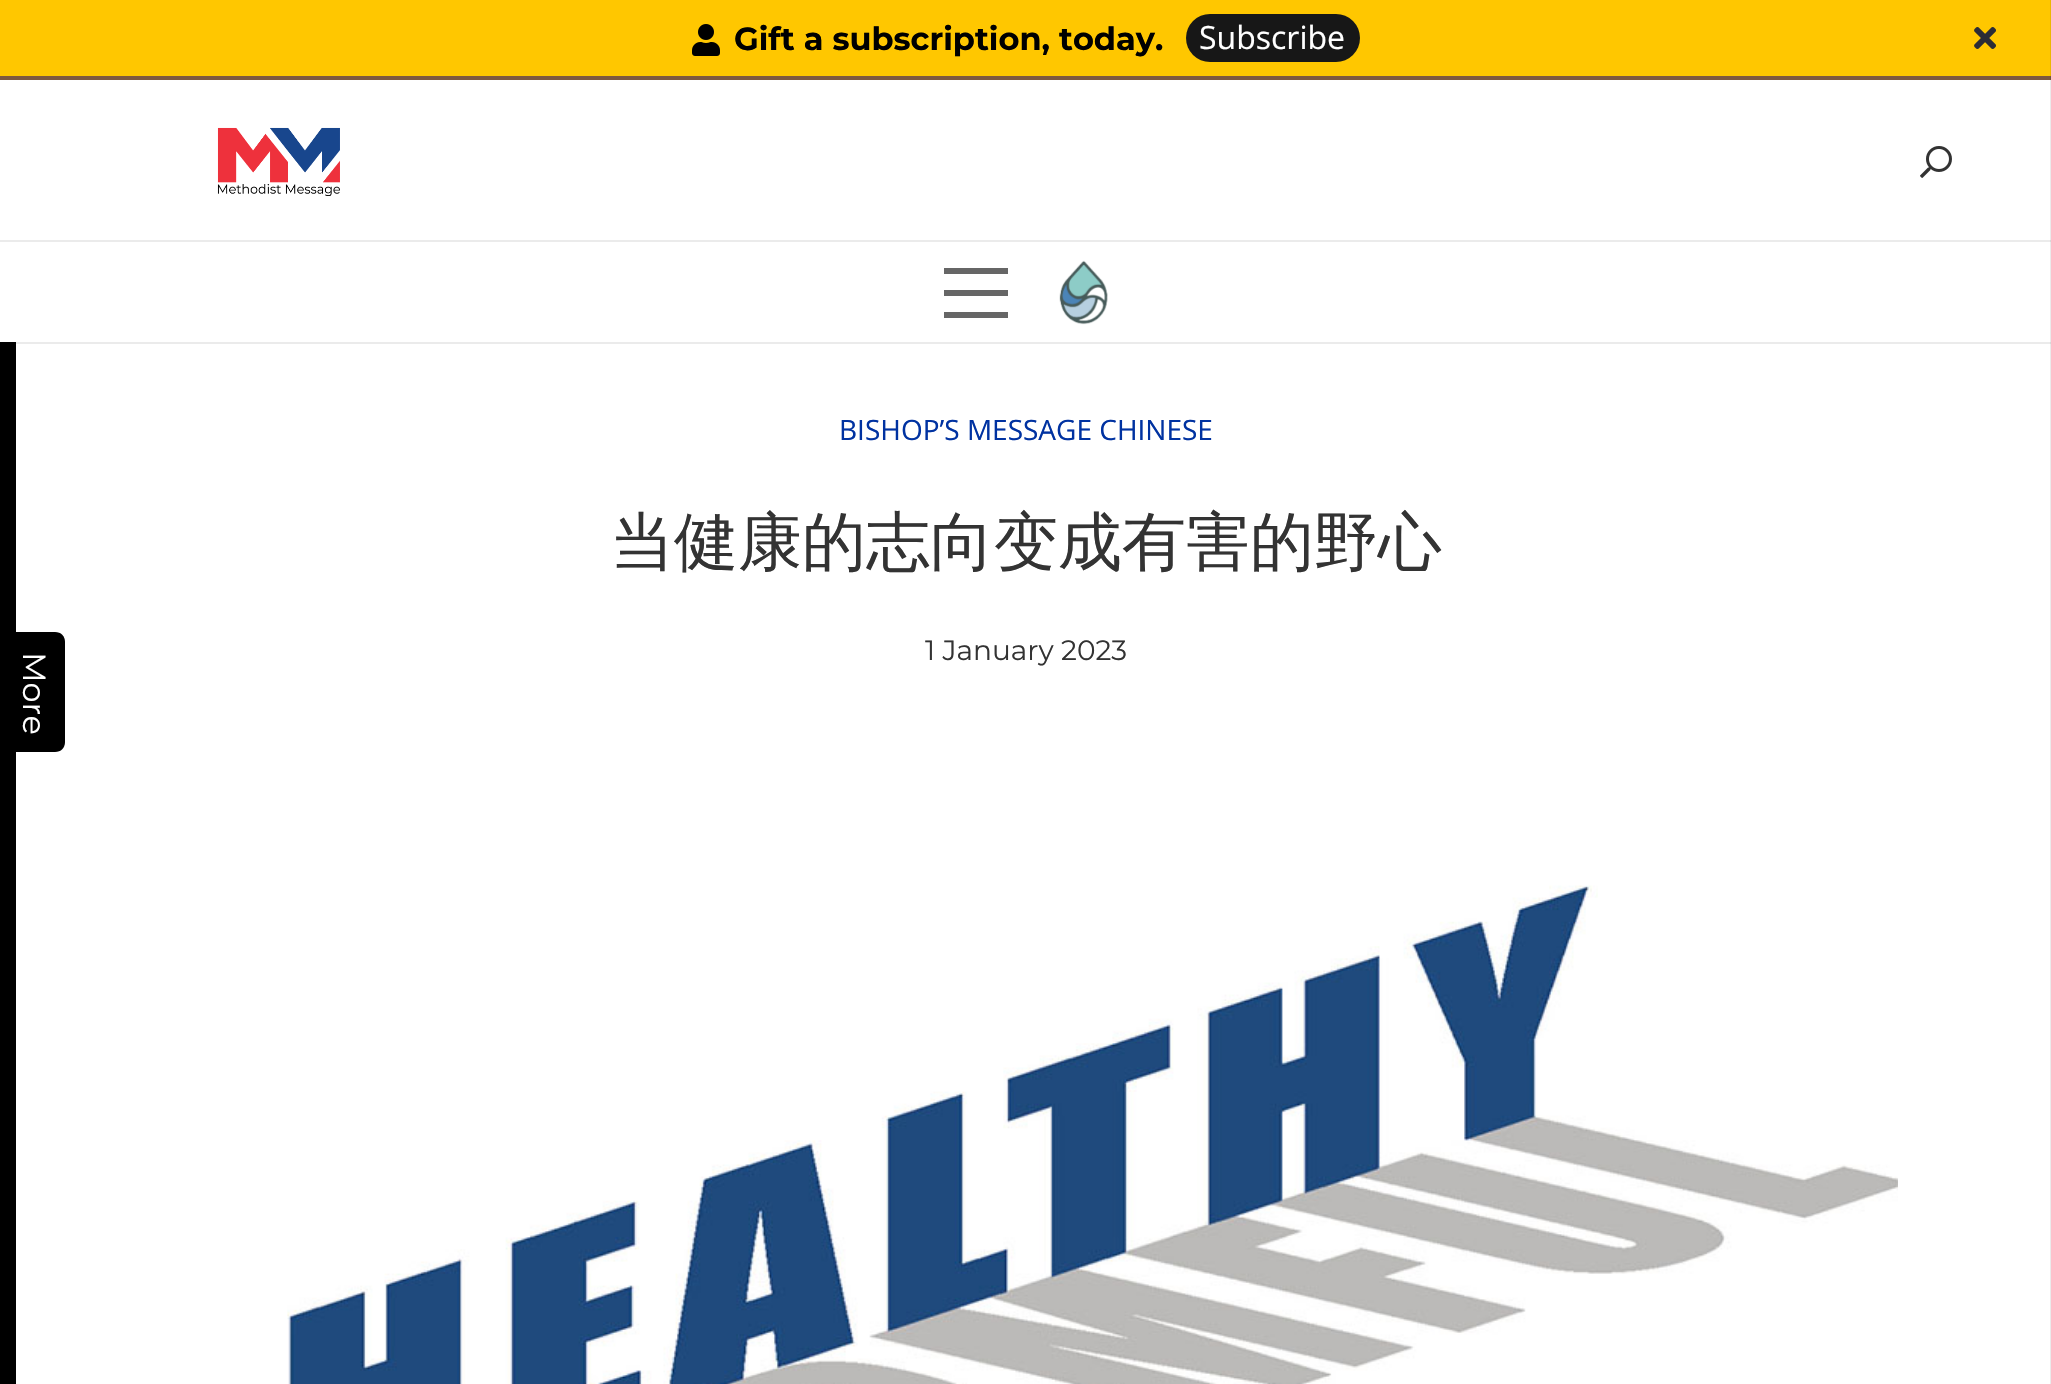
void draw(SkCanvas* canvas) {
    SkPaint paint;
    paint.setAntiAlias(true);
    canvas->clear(0xFFFFFFFF);
    paint.setColor(0xFFEBEBEB);
    canvas->drawRect(SkRect::MakeXYWH(2050, 344, 1, 1040), paint);
    canvas->drawRect(SkRect::MakeXYWH(16, 342, 2035, 2), paint);
    paint.setColor(0xFFD8D8D8);
    canvas->drawRect(SkRect::MakeXYWH(2050, 342, 1, 2), paint);
    paint.setColor(0xFFFFC700);
    canvas->drawRect(SkRect::MakeXYWH(0, 0, 2050, 76), paint);
    paint.setColor(0xFFEBB700);
    canvas->drawRect(SkRect::MakeXYWH(2050, 0, 1, 80), paint);
    paint.setColor(0xFF7E593F);
    canvas->drawRect(SkRect::MakeXYWH(0, 76, 2051, 4), paint);
    paint.setColor(0xFF74523A);
    canvas->drawRect(SkRect::MakeXYWH(2050, 76, 1, 4), paint);
    canvas->drawImageRect(SkImages::DeferredFromEncodedData(SkData::MakeFromFileName("img1.png")), SkRect::MakeXYWH(692, 24, 28, 32), SkSamplingOptions());
    SkFont font1(fontMgr->matchFamilyStyle("Montserrat", SkFontStyle::Bold()), 32);
    font1.setSubpixel(true);
    paint.setColor(0xFF000000);
    canvas->drawString("Gift a subscription, today.", 734, 50, font1, paint);
    paint.setColor(0xFF171717);
    canvas->drawRoundRect(SkRect::MakeXYWH(1186, 14, 174, 48), 24, 24, paint);
    SkFont font2(fontMgr->matchFamilyStyle("Open Sans", SkFontStyle::Normal()), 32);
    font2.setSubpixel(true);
    paint.setColor(0xFFFFFFFF);
    canvas->drawString("Subscribe", 1199, 49, font2, paint);
    canvas->drawImageRect(SkImages::DeferredFromEncodedData(SkData::MakeFromFileName("img2.png")), SkRect::MakeXYWH(1974, 27, 22, 22), SkSamplingOptions());
    paint.setColor(0xFFEBEBEB);
    canvas->drawRect(SkRect::MakeXYWH(2050, 80, 1, 262), paint);
    canvas->drawRect(SkRect::MakeXYWH(0, 240, 2051, 2), paint);
    paint.setColor(0xFFD8D8D8);
    canvas->drawRect(SkRect::MakeXYWH(2050, 240, 1, 2), paint);
    canvas->drawImageRect(SkImages::DeferredFromEncodedData(SkData::MakeFromFileName("img3.png")), SkRect::MakeXYWH(217, 127, 123, 69), SkSamplingOptions());
    canvas->drawImageRect(SkImages::DeferredFromEncodedData(SkData::MakeFromFileName("img4.png")), SkRect::MakeXYWH(1920, 146, 32, 32), SkSamplingOptions());
    paint.setColor(0xFF666666);
    canvas->drawRect(SkRect::MakeXYWH(944, 290, 64, 6), paint);
    canvas->drawRect(SkRect::MakeXYWH(944, 268, 64, 6), paint);
    canvas->drawRect(SkRect::MakeXYWH(944, 312, 64, 6), paint);
    canvas->drawImageRect(SkImages::DeferredFromEncodedData(SkData::MakeFromFileName("img5.png")), SkRect::MakeXYWH(1059, 260, 49, 65), SkSamplingOptions());
    paint.setColor(0xFF000000);
    canvas->drawPath(SkPathBuilder().moveTo(65, 642).lineTo(65, 742).cubicTo(65, 748, 61, 752, 55, 752).lineTo(15, 752).lineTo(15, 632).lineTo(55, 632).cubicTo(61, 632, 65, 636, 65, 642).close().detach(), paint);
    canvas->drawRect(SkRect::MakeXYWH(0, 342, 16, 1042), paint);
    SkFont font3(fontMgr->matchFamilyStyle("Open Sans", SkFontStyle::Normal()), 28);
    font3.setSubpixel(true);
    paint.setColor(0xFF0032A1);
    canvas->drawString("BISHOP’S MESSAGE CHINESE", 839, 440, font3, paint);
    SkFont font4(fontMgr->matchFamilyStyle("WenQuanYi Zen Hei", SkFontStyle(500, SkFontStyle::kNormal_Width, SkFontStyle::kUpright_Slant)), 64);
    font4.setSubpixel(true);
    paint.setColor(0xFF333333);
    canvas->drawString("当健康的志向变成有害的野心", 610, 564, font4, paint);
    SkFont font5(fontMgr->matchFamilyStyle("Montserrat", SkFontStyle::Normal()), 28);
    font5.setSubpixel(true);
    canvas->drawString("1 January 2023", 925, 660, font5, paint);
    canvas->drawImageRect(SkImages::DeferredFromEncodedData(SkData::MakeFromFileName("img6.png")), SkRect::MakeXYWH(287, 885, 1611, 499), SkSamplingOptions());
    SkFont font6(fontMgr->matchFamilyStyle("Montserrat", SkFontStyle::Normal()), 32);
    font6.setSubpixel(true);
    paint.setColor(0xFFFFFFFF);
    canvas->save();
    canvas->rotate(90, 23, 652);
    canvas->drawString("More", 23, 652, font6, paint);
    canvas->restore();
}
